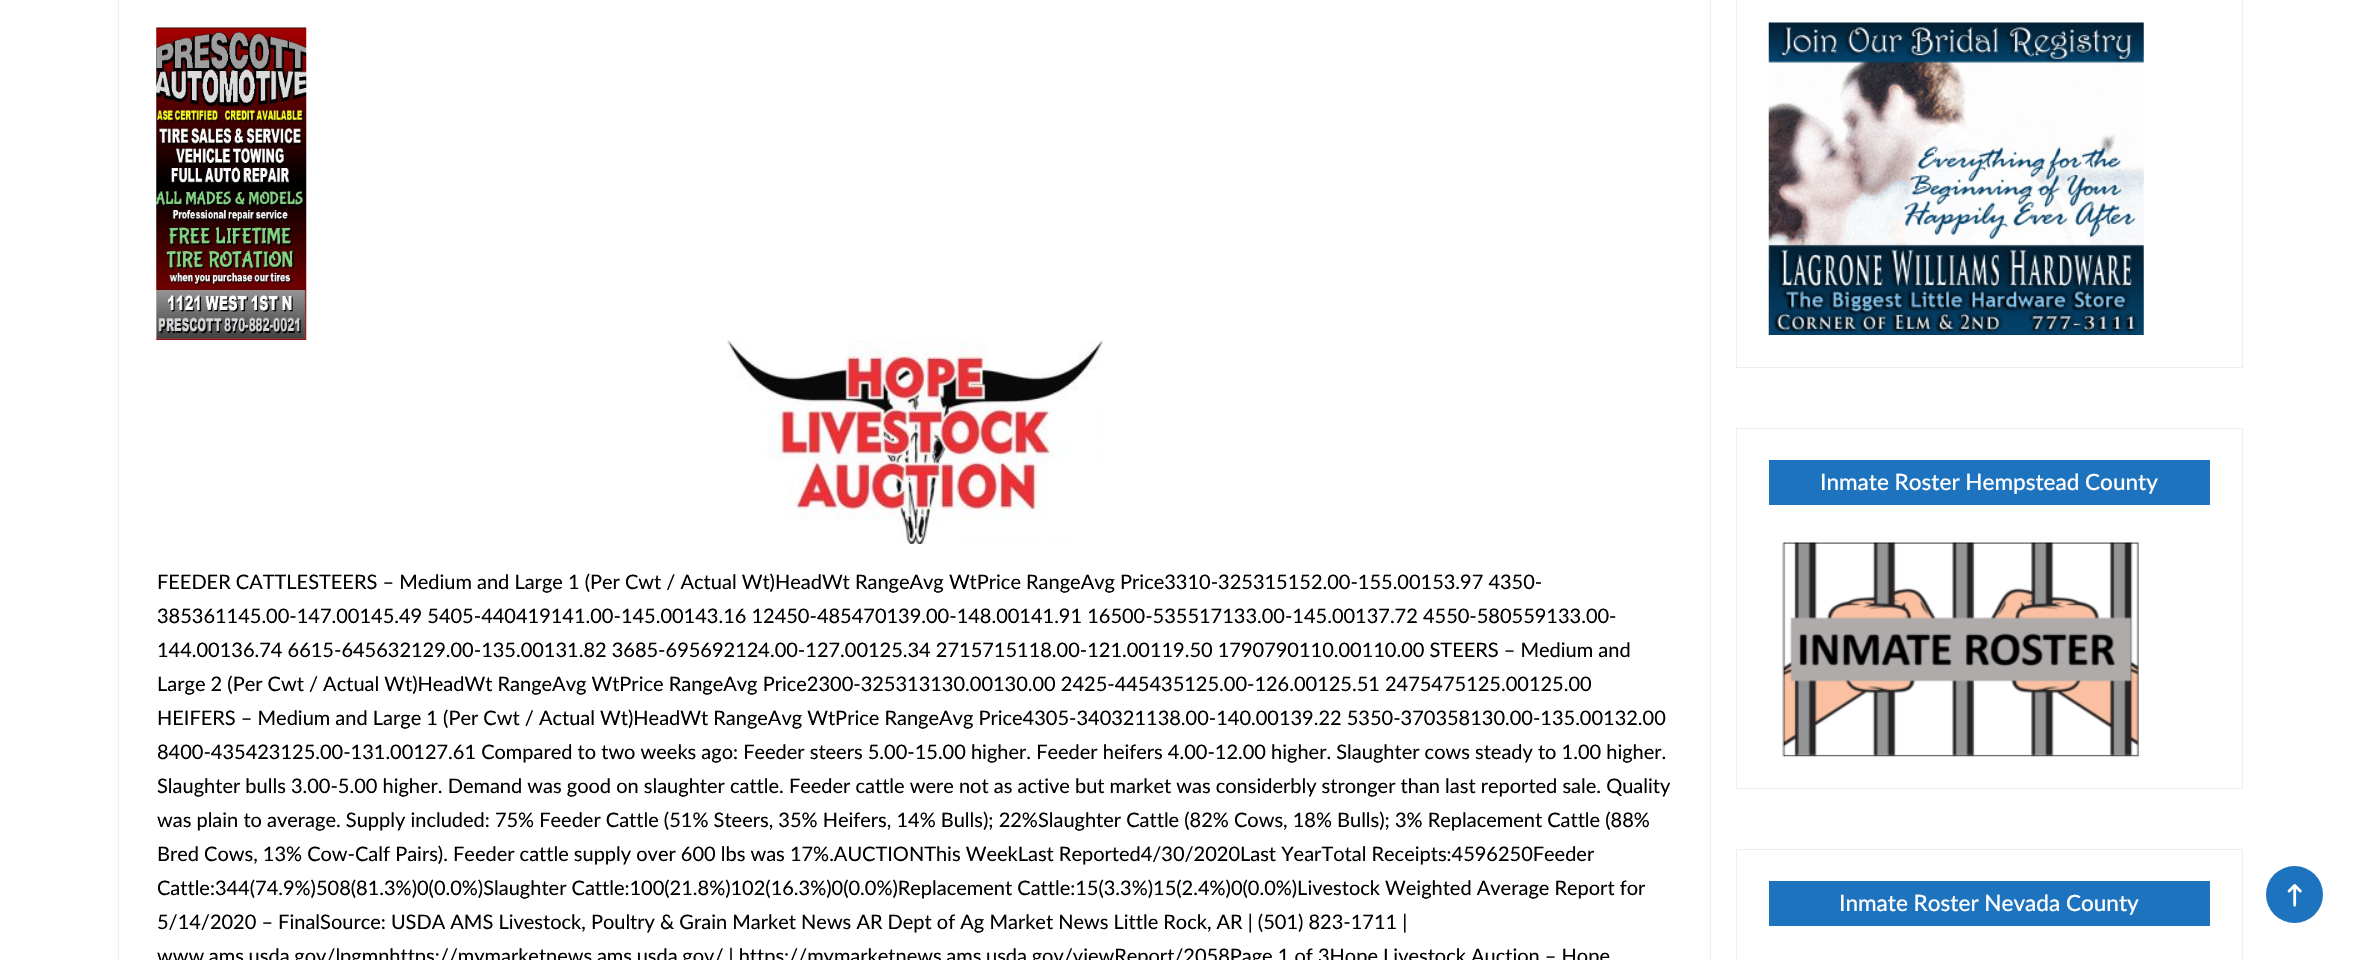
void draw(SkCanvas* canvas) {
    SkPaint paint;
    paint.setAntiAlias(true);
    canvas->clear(0xFFFFFFFF);
    paint.setStyle(SkPaint::kStroke_Style);
    paint.setStrokeWidth(1);
    paint.setColor(0xFFEEEEEE);
    canvas->drawRect(SkRect::MakeXYWH(118.5f, -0.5f, 1592, 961), paint);
    canvas->drawImageRect(SkImages::DeferredFromEncodedData(SkData::MakeFromFileName("img1.png")), SkRect::MakeXYWH(156, 27, 151, 313), SkSamplingOptions());
    canvas->drawImageRect(SkImages::DeferredFromEncodedData(SkData::MakeFromFileName("img2.png")), SkRect::MakeXYWH(727, 340, 376, 204), SkSamplingOptions());
    SkFont font1(fontMgr->matchFamilyStyle("Lato", SkFontStyle::Normal()), 20);
    font1.setSubpixel(true);
    paint.setStyle(SkPaint::kFill_Style);
    paint.setColor(0xFF000000);
    canvas->drawString("FEEDER CATTLESTEERS – Medium and Large 1 (Per Cwt / Actual Wt)HeadWt RangeAvg WtPrice RangeAvg Price3310-325315152.00-155.00153.97 4350-", 157, 589, font1, paint);
    canvas->drawString("385361145.00-147.00145.49 5405-440419141.00-145.00143.16 12450-485470139.00-148.00141.91 16500-535517133.00-145.00137.72 4550-580559133.00-", 157, 623, font1, paint);
    canvas->drawString("144.00136.74 6615-645632129.00-135.00131.82 3685-695692124.00-127.00125.34 2715715118.00-121.00119.50 1790790110.00110.00 STEERS – Medium and", 157, 657, font1, paint);
    canvas->drawString("Large 2 (Per Cwt / Actual Wt)HeadWt RangeAvg WtPrice RangeAvg Price2300-325313130.00130.00 2425-445435125.00-126.00125.51 2475475125.00125.00", 157, 691, font1, paint);
    canvas->drawString("HEIFERS – Medium and Large 1 (Per Cwt / Actual Wt)HeadWt RangeAvg WtPrice RangeAvg Price4305-340321138.00-140.00139.22 5350-370358130.00-135.00132.00", 157, 725, font1, paint);
    canvas->drawString("8400-435423125.00-131.00127.61 Compared to two weeks ago: Feeder steers 5.00-15.00 higher. Feeder heifers 4.00-12.00 higher. Slaughter cows steady to 1.00 higher.", 157, 759, font1, paint);
    canvas->drawString("Slaughter bulls 3.00-5.00 higher. Demand was good on slaughter cattle. Feeder cattle were not as active but market was considerbly stronger than last reported sale. Quality", 157, 793, font1, paint);
    canvas->drawString("was plain to average. Supply included: 75% Feeder Cattle (51% Steers, 35% Heifers, 14% Bulls); 22%Slaughter Cattle (82% Cows, 18% Bulls); 3% Replacement Cattle (88%", 157, 827, font1, paint);
    canvas->drawString("Bred Cows, 13% Cow-Calf Pairs). Feeder cattle supply over 600 lbs was 17%.AUCTIONThis WeekLast Reported4/30/2020Last YearTotal Receipts:4596250Feeder", 157, 861, font1, paint);
    canvas->drawString("Cattle:344(74.9%)508(81.3%)0(0.0%)Slaughter Cattle:100(21.8%)102(16.3%)0(0.0%)Replacement Cattle:15(3.3%)15(2.4%)0(0.0%)Livestock Weighted Average Report for", 157, 895, font1, paint);
    canvas->drawString("5/14/2020 – FinalSource: USDA AMS Livestock, Poultry & Grain Market News AR Dept of Ag Market News Little Rock, AR | (501) 823-1711 |", 157, 929, font1, paint);
    canvas->drawString("www.ams.usda.gov/lpgmnhttps://mymarketnews.ams.usda.gov/ | https://mymarketnews.ams.usda.gov/viewReport/2058Page 1 of 3Hope Livestock Auction – Hope", 157, 963, font1, paint);
    paint.setStyle(SkPaint::kStroke_Style);
    paint.setColor(0xFFEEEEEE);
    canvas->drawRect(SkRect::MakeXYWH(1736.5f, -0.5f, 506, 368), paint);
    canvas->drawImageRect(SkImages::DeferredFromEncodedData(SkData::MakeFromFileName("img3.png")), SkRect::MakeXYWH(1768, 22, 376, 313), SkSamplingOptions());
    canvas->drawRect(SkRect::MakeXYWH(1736.5f, 428.5f, 506, 360), paint);
    paint.setStyle(SkPaint::kFill_Style);
    paint.setColor(0xFF1E73BE);
    canvas->drawRect(SkRect::MakeXYWH(1769, 460, 441, 45), paint);
    SkFont font2(fontMgr->matchFamilyStyle("Lato", SkFontStyle(500, SkFontStyle::kNormal_Width, SkFontStyle::kUpright_Slant)), 22.5f);
    font2.setSubpixel(true);
    paint.setColor(0xFFFFFFFF);
    canvas->drawString("Inmate Roster Hempstead County", 1820, 490, font2, paint);
    canvas->drawImageRect(SkImages::DeferredFromEncodedData(SkData::MakeFromFileName("img4.png")), SkRect::MakeXYWH(1782, 542, 357, 215), SkSamplingOptions());
    paint.setStyle(SkPaint::kStroke_Style);
    paint.setColor(0xFFEEEEEE);
    canvas->drawRect(SkRect::MakeXYWH(1736.5f, 849.5f, 506, 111), paint);
    paint.setStyle(SkPaint::kFill_Style);
    paint.setColor(0xFF1E73BE);
    canvas->drawRect(SkRect::MakeXYWH(1769, 881, 441, 45), paint);
    paint.setColor(0xFFFFFFFF);
    canvas->drawString("Inmate Roster Nevada County", 1839, 911, font2, paint);
    paint.setColor(0xFF1E73BE);
    canvas->drawCircle(2294.5f, 894.5f, 28.5f, paint);
    canvas->drawImageRect(SkImages::DeferredFromEncodedData(SkData::MakeFromFileName("img5.png")), SkRect::MakeXYWH(2287, 884, 15, 23), SkSamplingOptions());
}
